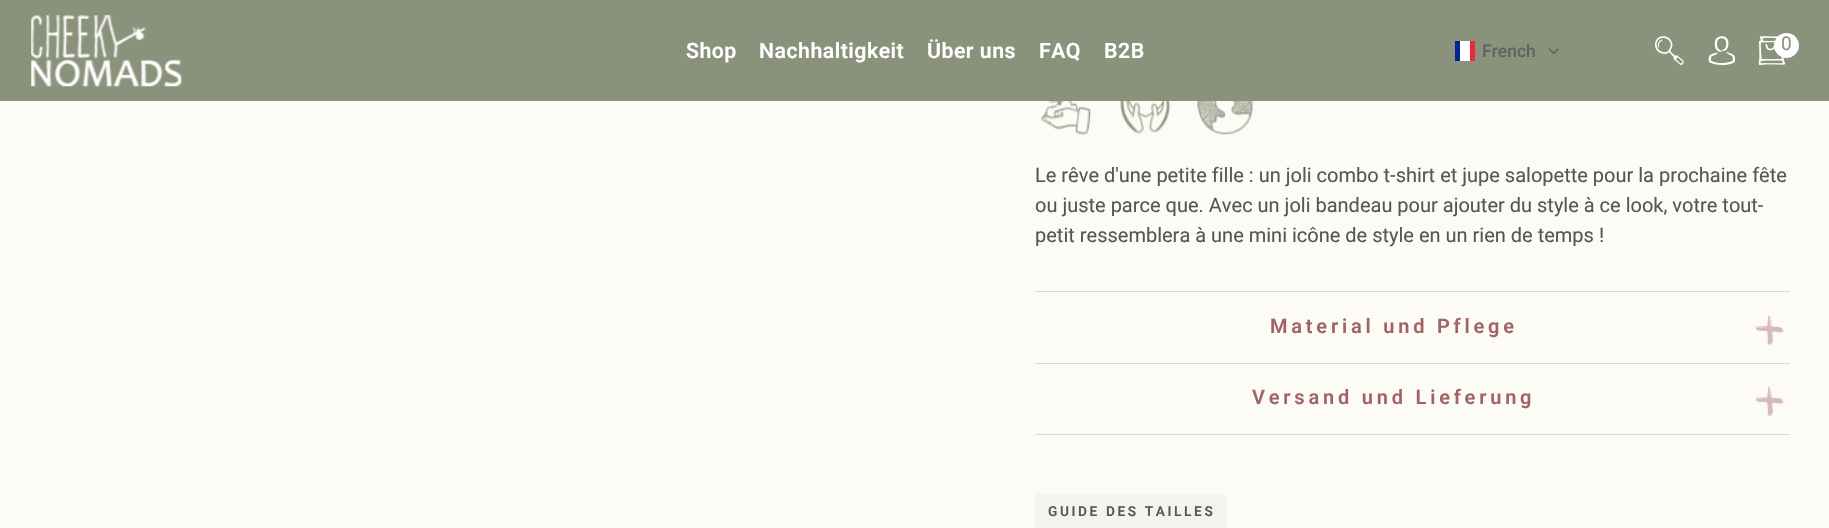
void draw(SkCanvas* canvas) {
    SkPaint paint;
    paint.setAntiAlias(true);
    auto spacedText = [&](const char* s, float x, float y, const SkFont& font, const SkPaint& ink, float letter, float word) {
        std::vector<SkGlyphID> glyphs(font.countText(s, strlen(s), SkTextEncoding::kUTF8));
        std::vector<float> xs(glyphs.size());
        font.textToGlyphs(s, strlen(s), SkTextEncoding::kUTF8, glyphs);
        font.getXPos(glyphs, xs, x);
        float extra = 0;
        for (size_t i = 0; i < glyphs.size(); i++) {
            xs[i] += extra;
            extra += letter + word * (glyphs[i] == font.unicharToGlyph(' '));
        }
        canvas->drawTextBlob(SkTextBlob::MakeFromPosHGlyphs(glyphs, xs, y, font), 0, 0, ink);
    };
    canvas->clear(0xFFFCFBF6);
    paint.setColor(0xFF8B927C);
    canvas->drawRect(SkRect::MakeXYWH(0, 0, 1829, 101), paint);
    canvas->drawImageRect(SkImages::DeferredFromEncodedData(SkData::MakeFromFileName("img1.png")), SkRect::MakeXYWH(31, 15, 151, 72), SkSamplingOptions());
    SkFont font1(fontMgr->matchFamilyStyle("Roboto", SkFontStyle(600, SkFontStyle::kNormal_Width, SkFontStyle::kUpright_Slant)), 21.25f);
    font1.setSubpixel(true);
    paint.setColor(0xFFFFFFFF);
    spacedText("Shop", 686, 58, font1, paint, 0.5f, 0);
    spacedText("Nachhaltigkeit", 759, 58, font1, paint, 0.5f, 0);
    spacedText("Über uns", 927, 58, font1, paint, 0.5f, 0);
    spacedText("FAQ", 1039, 58, font1, paint, 0.5f, 0);
    spacedText("B2B", 1104, 58, font1, paint, 0.5f, 0);
    paint.setColor(0xFFED2939);
    canvas->drawRect(SkRect::MakeXYWH(1470, 41, 5, 20), paint);
    paint.setColor(0xFFFFFFFF);
    canvas->drawRect(SkRect::MakeXYWH(1460, 41, 10, 20), paint);
    paint.setColor(0xFF002395);
    canvas->drawRect(SkRect::MakeXYWH(1455, 41, 5, 20), paint);
    SkFont font2(fontMgr->matchFamilyStyle("Roboto", SkFontStyle(500, SkFontStyle::kNormal_Width, SkFontStyle::kUpright_Slant)), 17.5f);
    font2.setSubpixel(true);
    paint.setColor(0xFF616161);
    canvas->drawString("French", 1482, 57, font2, paint);
    canvas->drawImageRect(SkImages::DeferredFromEncodedData(SkData::MakeFromFileName("img2.png")), SkRect::MakeXYWH(1548, 48, 11, 6), SkSamplingOptions());
    canvas->drawImageRect(SkImages::DeferredFromEncodedData(SkData::MakeFromFileName("img3.png")), SkRect::MakeXYWH(1655, 36, 29, 29), SkSamplingOptions());
    canvas->drawImageRect(SkImages::DeferredFromEncodedData(SkData::MakeFromFileName("img4.png")), SkRect::MakeXYWH(1708, 36, 27, 29), SkSamplingOptions());
    canvas->drawImageRect(SkImages::DeferredFromEncodedData(SkData::MakeFromFileName("img5.png")), SkRect::MakeXYWH(1758, 36, 27, 29), SkSamplingOptions());
    paint.setColor(0xFFFFFFFF);
    canvas->drawCircle(1786.5f, 45.5f, 12.5f, paint);
    SkFont font3(fontMgr->matchFamilyStyle("Roboto", SkFontStyle::Normal()), 19);
    font3.setSubpixel(true);
    paint.setColor(0xFF8B927C);
    canvas->drawString("0", 1781, 50, font3, paint);
    canvas->drawImageRect(SkImages::DeferredFromEncodedData(SkData::MakeFromFileName("img6.png")), SkRect::MakeXYWH(1041, 101, 50, 34), SkSamplingOptions());
    canvas->drawImageRect(SkImages::DeferredFromEncodedData(SkData::MakeFromFileName("img7.png")), SkRect::MakeXYWH(1120, 101, 51, 33), SkSamplingOptions());
    canvas->drawImageRect(SkImages::DeferredFromEncodedData(SkData::MakeFromFileName("img8.png")), SkRect::MakeXYWH(1197, 101, 56, 34), SkSamplingOptions());
    SkFont font4(fontMgr->matchFamilyStyle("Roboto", SkFontStyle::Normal()), 20);
    font4.setSubpixel(true);
    paint.setColor(0xFF555750);
    canvas->drawString("Le rêve d'une petite fille : un joli combo t-shirt et jupe salopette pour la prochaine fête", 1035, 182, font4, paint);
    canvas->drawString("ou juste parce que. Avec un joli bandeau pour ajouter du style à ce look, votre tout-", 1035, 212, font4, paint);
    canvas->drawString("petit ressemblera à une mini icône de style en un rien de temps !", 1035, 242, font4, paint);
    paint.setColor(0xFFDBDAD5);
    canvas->drawRect(SkRect::MakeXYWH(1035, 291, 755, 1), paint);
    canvas->drawRect(SkRect::MakeXYWH(1035, 363, 755, 1), paint);
    SkFont font5(fontMgr->matchFamilyStyle("Roboto", SkFontStyle(600, SkFontStyle::kNormal_Width, SkFontStyle::kUpright_Slant)), 20);
    font5.setSubpixel(true);
    paint.setColor(0xFFA06464);
    spacedText("Material und Pflege", 1270, 333, font5, paint, 3.8f, 0);
    canvas->drawImageRect(SkImages::DeferredFromEncodedData(SkData::MakeFromFileName("img9.png")), SkRect::MakeXYWH(1756, 315, 28, 30), SkSamplingOptions());
    paint.setColor(0xFFDBDAD5);
    canvas->drawRect(SkRect::MakeXYWH(1035, 434, 755, 1), paint);
    paint.setColor(0xFFA06464);
    spacedText("Versand und Lieferung", 1252, 404, font5, paint, 3.8f, 0);
    canvas->drawImageRect(SkImages::DeferredFromEncodedData(SkData::MakeFromFileName("img10.png")), SkRect::MakeXYWH(1756, 386, 28, 30), SkSamplingOptions());
    paint.setColor(0xFFF4F3EE);
    canvas->drawRoundRect(SkRect::MakeXYWH(1035, 494, 191, 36), 4, 4, paint);
    SkFont font6(fontMgr->matchFamilyStyle("Roboto", SkFontStyle(600, SkFontStyle::kNormal_Width, SkFontStyle::kUpright_Slant)), 13.7f);
    font6.setSubpixel(true);
    paint.setColor(0xFF555750);
    spacedText("GUIDE DES TAILLES", 1048, 516, font6, paint, 2.6f, 0);
}
